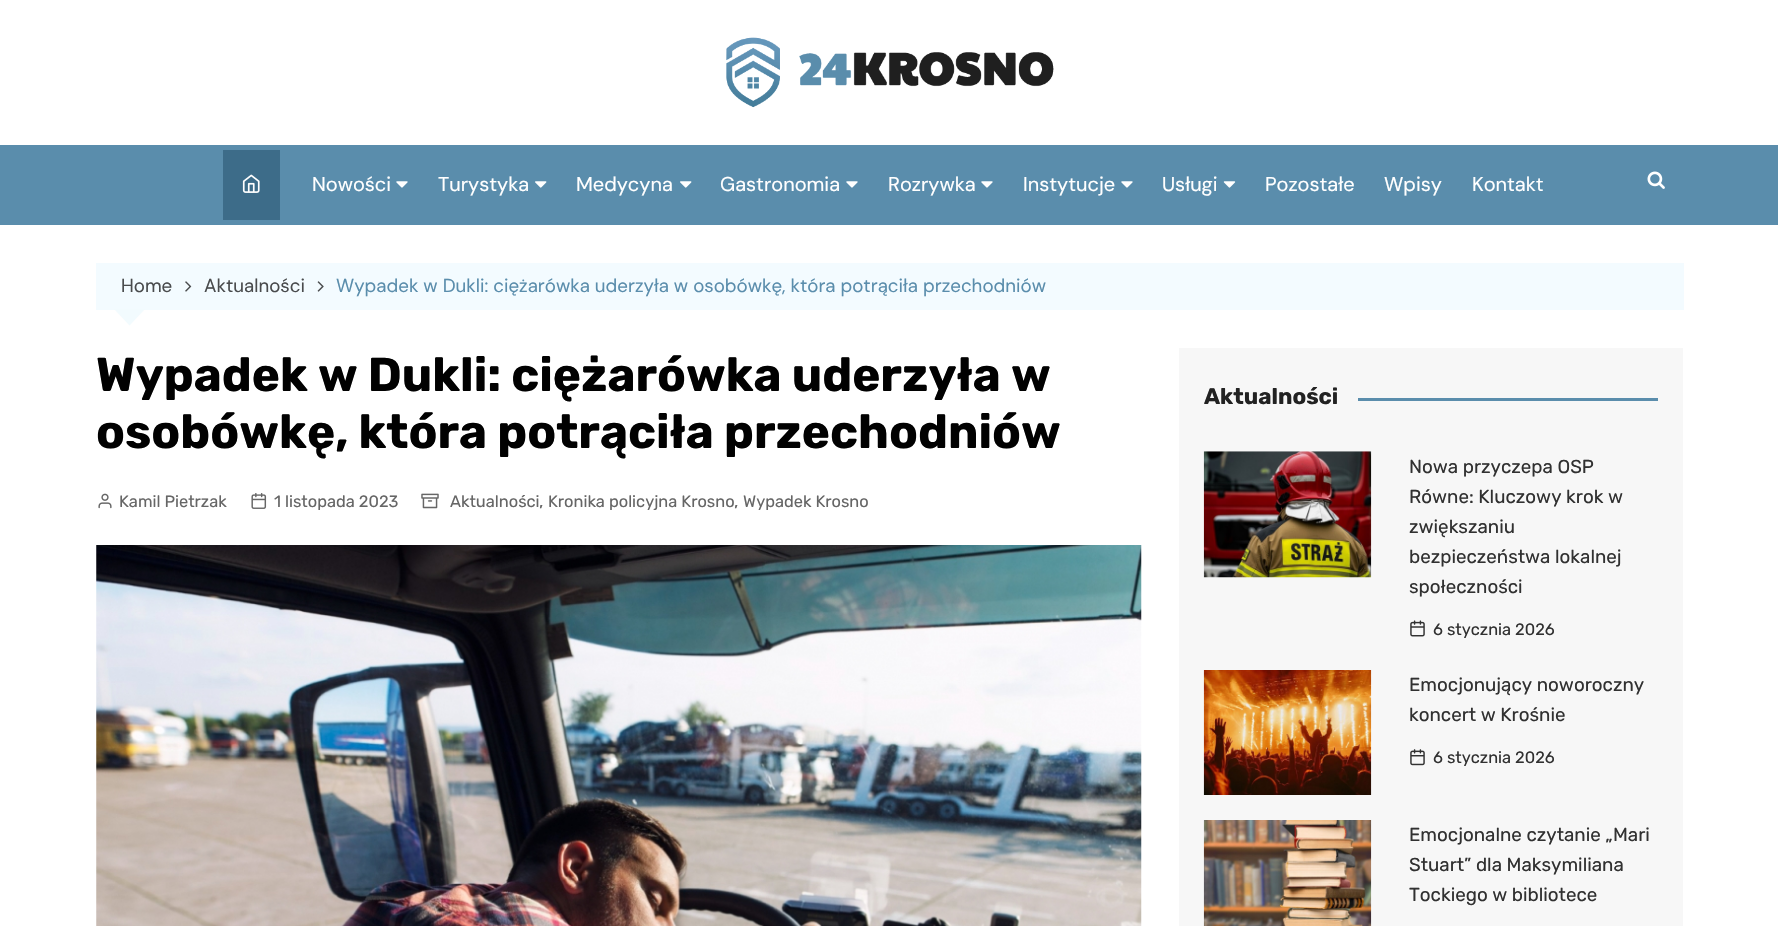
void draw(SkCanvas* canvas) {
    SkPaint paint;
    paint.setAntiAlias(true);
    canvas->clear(0xFFFFFFFF);
    canvas->drawImageRect(SkImages::DeferredFromEncodedData(SkData::MakeFromFileName("img1.png")), SkRect::MakeXYWH(726, 37, 328, 71), SkSamplingOptions());
    paint.setColor(0xFF5A8DAC);
    canvas->drawRect(SkRect::MakeXYWH(0, 145, 1778, 80), paint);
    paint.setColor(0xFF3D6C89);
    canvas->drawRect(SkRect::MakeXYWH(223, 150, 57, 70), paint);
    canvas->drawImageRect(SkImages::DeferredFromEncodedData(SkData::MakeFromFileName("img2.png")), SkRect::MakeXYWH(242, 174, 18, 19), SkSamplingOptions());
    SkFont font1(fontMgr->matchFamilyStyle("DM Sans", SkFontStyle::Normal()), 20);
    font1.setSubpixel(true);
    paint.setColor(0xFFFFFFFF);
    canvas->drawString("Nowości", 312, 191, font1, paint);
    canvas->drawImageRect(SkImages::DeferredFromEncodedData(SkData::MakeFromFileName("img3.png")), SkRect::MakeXYWH(396, 181, 12, 7), SkSamplingOptions());
    canvas->drawString("Turystyka", 438, 191, font1, paint);
    canvas->drawImageRect(SkImages::DeferredFromEncodedData(SkData::MakeFromFileName("img4.png")), SkRect::MakeXYWH(535, 181, 12, 7), SkSamplingOptions());
    canvas->drawString("Medycyna", 576, 191, font1, paint);
    canvas->drawImageRect(SkImages::DeferredFromEncodedData(SkData::MakeFromFileName("img4.png")), SkRect::MakeXYWH(680, 181, 12, 7), SkSamplingOptions());
    canvas->drawString("Gastronomia", 720, 191, font1, paint);
    canvas->drawImageRect(SkImages::DeferredFromEncodedData(SkData::MakeFromFileName("img3.png")), SkRect::MakeXYWH(846, 181, 12, 7), SkSamplingOptions());
    canvas->drawString("Rozrywka", 888, 191, font1, paint);
    canvas->drawImageRect(SkImages::DeferredFromEncodedData(SkData::MakeFromFileName("img3.png")), SkRect::MakeXYWH(981, 181, 12, 7), SkSamplingOptions());
    canvas->drawString("Instytucje", 1023, 191, font1, paint);
    canvas->drawImageRect(SkImages::DeferredFromEncodedData(SkData::MakeFromFileName("img3.png")), SkRect::MakeXYWH(1121, 181, 12, 7), SkSamplingOptions());
    canvas->drawString("Usługi", 1162, 191, font1, paint);
    canvas->drawImageRect(SkImages::DeferredFromEncodedData(SkData::MakeFromFileName("img5.png")), SkRect::MakeXYWH(1223, 181, 13, 7), SkSamplingOptions());
    canvas->drawString("Pozostałe", 1265, 191, font1, paint);
    canvas->drawString("Wpisy", 1384, 191, font1, paint);
    canvas->drawString("Kontakt", 1472, 191, font1, paint);
    canvas->drawImageRect(SkImages::DeferredFromEncodedData(SkData::MakeFromFileName("img6.png")), SkRect::MakeXYWH(1647, 171, 18, 18), SkSamplingOptions());
    paint.setColor(0xFFF3FBFF);
    canvas->drawRect(SkRect::MakeXYWH(96, 263, 1588, 47), paint);
    SkFont font2(fontMgr->matchFamilyStyle("DM Sans", SkFontStyle::Normal()), 18.75f);
    font2.setSubpixel(true);
    paint.setColor(0xFF494B4D);
    canvas->drawString("Home", 121, 292, font2, paint);
    canvas->drawImageRect(SkImages::DeferredFromEncodedData(SkData::MakeFromFileName("img7.png")), SkRect::MakeXYWH(185, 281, 7, 11), SkSamplingOptions());
    canvas->drawString("Aktualności", 204, 292, font2, paint);
    canvas->drawImageRect(SkImages::DeferredFromEncodedData(SkData::MakeFromFileName("img8.png")), SkRect::MakeXYWH(317, 281, 7, 11), SkSamplingOptions());
    paint.setColor(0xFF5A8DAC);
    canvas->drawString("Wypadek w Dukli: ciężarówka uderzyła w osobówkę, która potrąciła przechodniów", 336, 292, font2, paint);
    paint.setColor(0xFFF2FBFE);
    canvas->drawPath(SkPathBuilder().moveTo(114.5f, 309.5f).lineTo(144.5f, 309.5f).lineTo(129.5f, 325.5f).close().detach(), paint);
    SkFont font3(fontMgr->matchFamilyStyle("Rubik", SkFontStyle::Bold()), 47.5f);
    font3.setSubpixel(true);
    paint.setColor(0xFF010101);
    canvas->drawString("Wypadek w Dukli: ciężarówka uderzyła w", 96, 391, font3, paint);
    canvas->drawString("osobówkę, która potrąciła przechodniów", 96, 448, font3, paint);
    canvas->drawImageRect(SkImages::DeferredFromEncodedData(SkData::MakeFromFileName("img9.png")), SkRect::MakeXYWH(98, 493, 14, 16), SkSamplingOptions());
    SkFont font4(fontMgr->matchFamilyStyle("Rubik", SkFontStyle::Normal()), 16.4f);
    font4.setSubpixel(true);
    paint.setColor(0xFF666666);
    canvas->drawString("Kamil Pietrzak", 119, 507, font4, paint);
    canvas->drawImageRect(SkImages::DeferredFromEncodedData(SkData::MakeFromFileName("img10.png")), SkRect::MakeXYWH(251, 493, 16, 16), SkSamplingOptions());
    canvas->drawString("1 listopada 2023", 274, 507, font4, paint);
    canvas->drawImageRect(SkImages::DeferredFromEncodedData(SkData::MakeFromFileName("img11.png")), SkRect::MakeXYWH(421, 493, 18, 16), SkSamplingOptions());
    canvas->drawString("Aktualności", 450, 507, font4, paint);
    SkFont font5(fontMgr->matchFamilyStyle("Rubik", SkFontStyle::Normal()), 18);
    font5.setSubpixel(true);
    canvas->drawString(",", 539, 507, font5, paint);
    canvas->drawString("Kronika policyjna Krosno", 548, 507, font4, paint);
    canvas->drawString(",", 734, 507, font5, paint);
    canvas->drawString("Wypadek Krosno", 743, 507, font4, paint);
    canvas->drawImageRect(SkImages::DeferredFromEncodedData(SkData::MakeFromFileName("img12.png")), SkRect::MakeXYWH(96, 545, 1046, 381), SkSamplingOptions());
    paint.setColor(0xFFF7F7F7);
    canvas->drawRect(SkRect::MakeXYWH(1179, 348, 504, 578), paint);
    SkFont font6(fontMgr->matchFamilyStyle("Rubik", SkFontStyle::Bold()), 22.5f);
    font6.setSubpixel(true);
    paint.setColor(0xFF222222);
    canvas->drawString("Aktualności", 1204, 404, font6, paint);
    paint.setColor(0xFF5A8DAC);
    canvas->drawRect(SkRect::MakeXYWH(1358, 398, 300, 3), paint);
    canvas->drawImageRect(SkImages::DeferredFromEncodedData(SkData::MakeFromFileName("img13.png")), SkRect::MakeXYWH(1203, 451, 169, 127), SkSamplingOptions());
    SkFont font7(fontMgr->matchFamilyStyle("Rubik", SkFontStyle::Normal()), 18.75f);
    font7.setSubpixel(true);
    paint.setColor(0xFF313131);
    canvas->drawString("Nowa przyczepa OSP", 1409, 473, font7, paint);
    canvas->drawString("Równe: Kluczowy krok w", 1409, 503, font7, paint);
    canvas->drawString("zwiększaniu", 1409, 533, font7, paint);
    canvas->drawString("bezpieczeństwa lokalnej", 1409, 563, font7, paint);
    canvas->drawString("społeczności", 1409, 593, font7, paint);
    canvas->drawImageRect(SkImages::DeferredFromEncodedData(SkData::MakeFromFileName("img14.png")), SkRect::MakeXYWH(1410, 620, 15, 17), SkSamplingOptions());
    canvas->drawString("6 stycznia 2026", 1433, 635, font4, paint);
    canvas->drawImageRect(SkImages::DeferredFromEncodedData(SkData::MakeFromFileName("img15.png")), SkRect::MakeXYWH(1203, 670, 169, 125), SkSamplingOptions());
    canvas->drawString("Emocjonujący noworoczny", 1409, 691, font7, paint);
    canvas->drawString("koncert w Krośnie", 1409, 721, font7, paint);
    canvas->drawImageRect(SkImages::DeferredFromEncodedData(SkData::MakeFromFileName("img16.png")), SkRect::MakeXYWH(1410, 749, 15, 17), SkSamplingOptions());
    canvas->drawString("6 stycznia 2026", 1433, 763, font4, paint);
    canvas->drawImageRect(SkImages::DeferredFromEncodedData(SkData::MakeFromFileName("img17.png")), SkRect::MakeXYWH(1203, 820, 169, 106), SkSamplingOptions());
    canvas->drawString("Emocjonalne czytanie „Mari", 1409, 841, font7, paint);
    canvas->drawString("Stuart” dla Maksymiliana", 1409, 871, font7, paint);
    canvas->drawString("Tockiego w bibliotece", 1409, 901, font7, paint);
}
